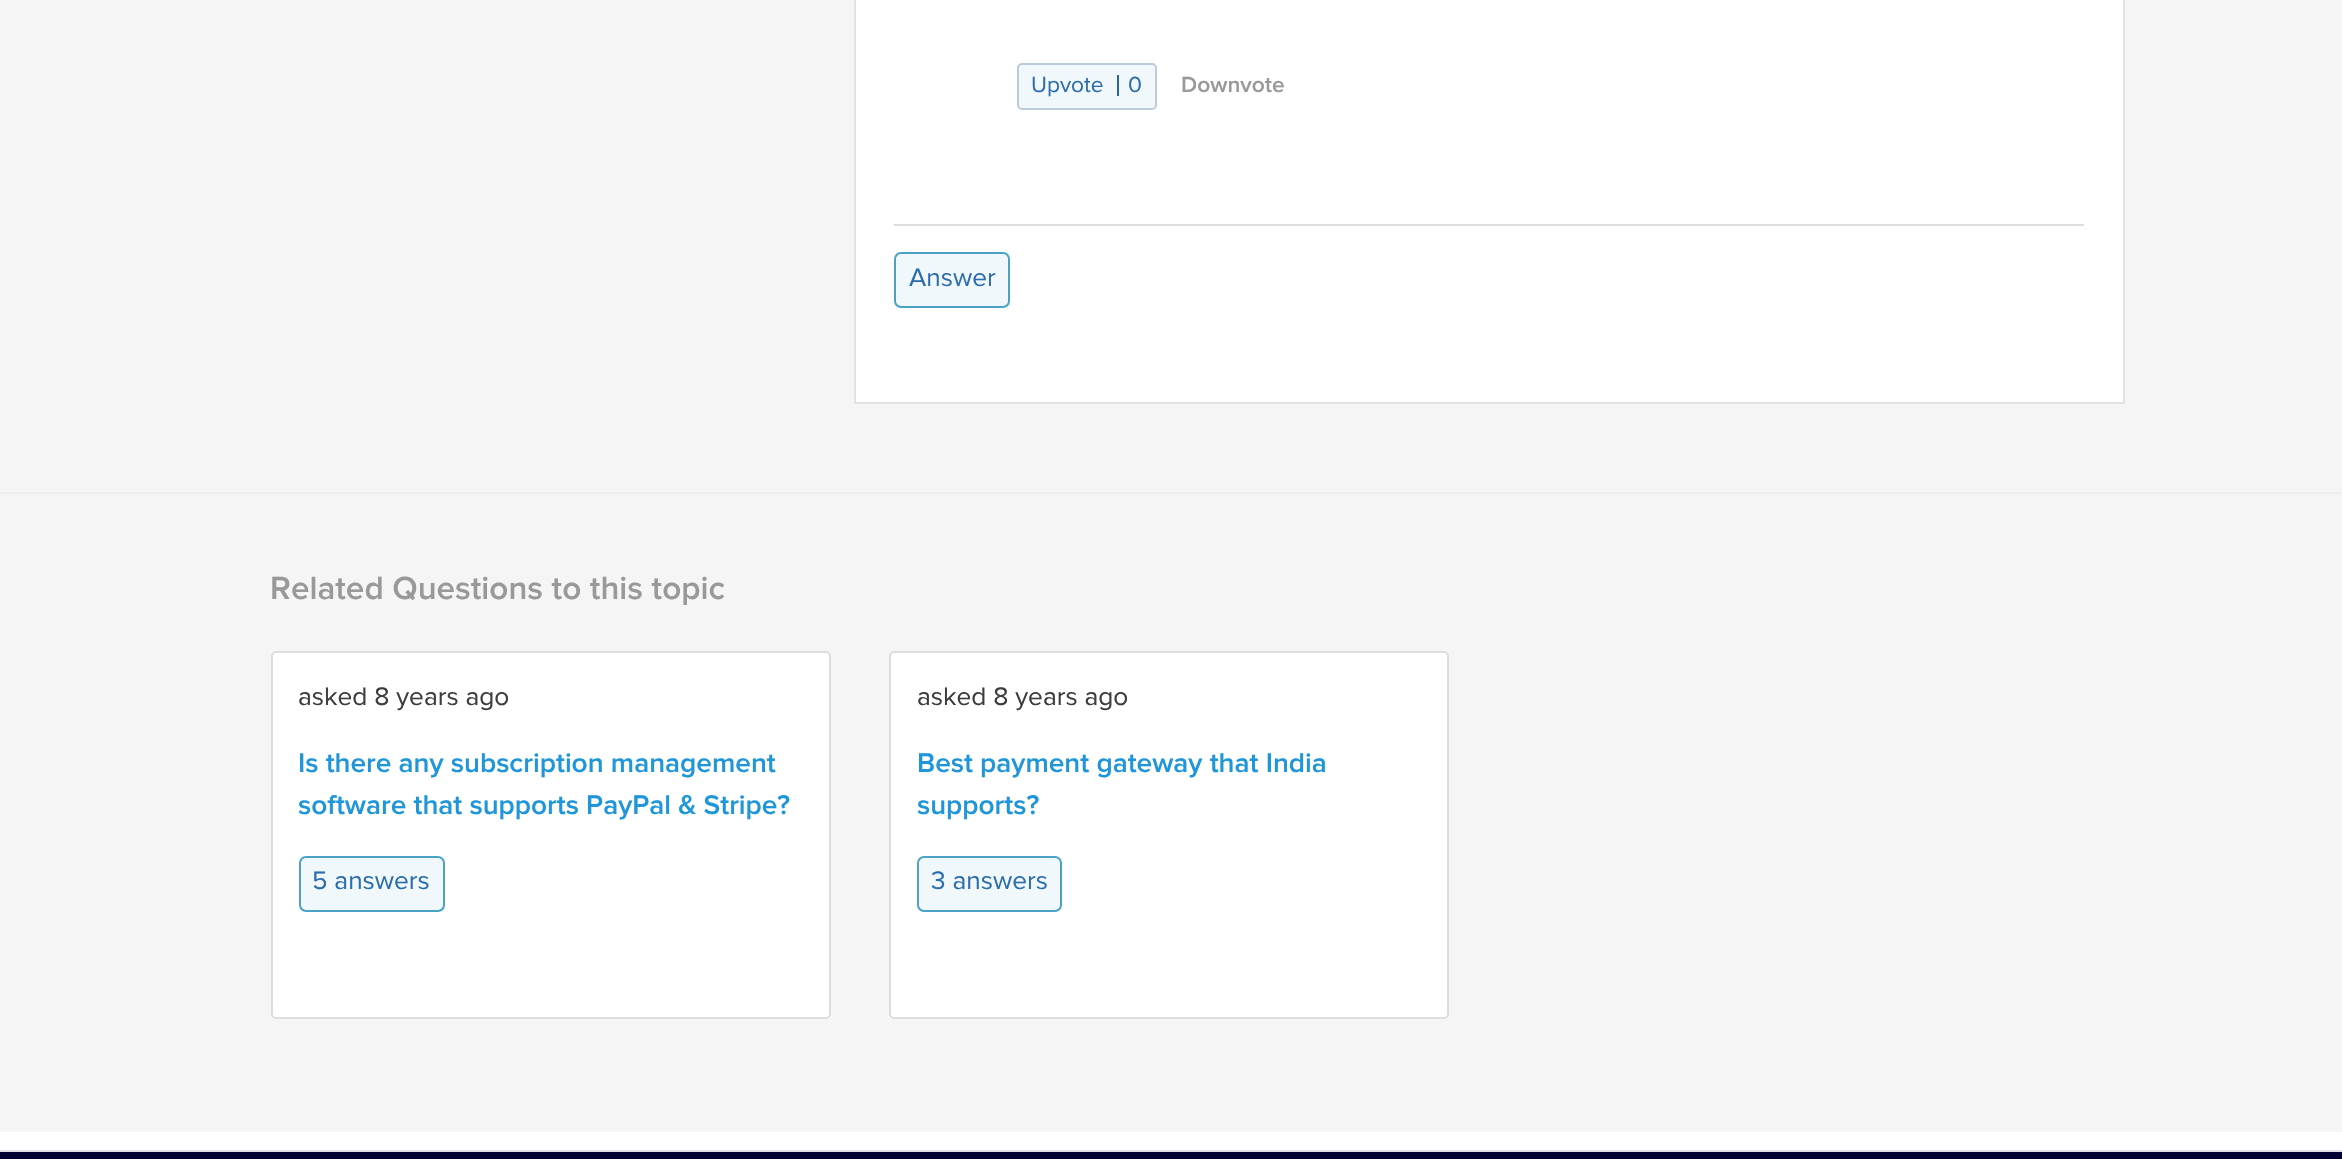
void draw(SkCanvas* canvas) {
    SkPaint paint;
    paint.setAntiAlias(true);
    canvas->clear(0xFFFFFFFF);
    paint.setColor(0xFFF5F5F5);
    canvas->drawRect(SkRect::MakeXYWH(0, 0, 2342, 1132), paint);
    paint.setColor(0xFFFFFFFF);
    canvas->drawRect(SkRect::MakeXYWH(855, -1, 1269, 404), paint);
    paint.setStyle(SkPaint::kStroke_Style);
    paint.setStrokeWidth(2);
    paint.setColor(0xFFE2E2E2);
    canvas->drawRect(SkRect::MakeXYWH(855, -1, 1269, 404), paint);
    paint.setStyle(SkPaint::kFill_Style);
    paint.setColor(0xFFF1F8FB);
    canvas->drawRoundRect(SkRect::MakeXYWH(1018, 64, 138, 45), 4, 4, paint);
    paint.setStyle(SkPaint::kStroke_Style);
    paint.setColor(0xFFBBCADC);
    canvas->drawRoundRect(SkRect::MakeXYWH(1018, 64, 138, 45), 4, 4, paint);
    SkFont font1(fontMgr->matchFamilyStyle("Proxima Nova", SkFontStyle::Normal()), 22.75f);
    font1.setSubpixel(true);
    paint.setStyle(SkPaint::kFill_Style);
    paint.setColor(0xFF2B6DAD);
    canvas->drawString("Upvote", 1031, 92, font1, paint);
    paint.setColor(0xFF2865A1);
    canvas->drawRect(SkRect::MakeXYWH(1117, 75, 2, 21), paint);
    paint.setColor(0xFF2B6DAD);
    canvas->drawString("0", 1128, 92, font1, paint);
    SkFont font2(fontMgr->matchFamilyStyle("Proxima Nova", SkFontStyle(600, SkFontStyle::kNormal_Width, SkFontStyle::kUpright_Slant)), 22.75f);
    font2.setSubpixel(true);
    paint.setColor(0xFF999999);
    canvas->drawString("Downvote", 1181, 92, font2, paint);
    paint.setColor(0xFFDDDDDD);
    canvas->drawRect(SkRect::MakeXYWH(894, 224, 1190, 2), paint);
    paint.setColor(0xFFF1F8FB);
    canvas->drawRoundRect(SkRect::MakeXYWH(895, 253, 114, 54), 6, 6, paint);
    paint.setStyle(SkPaint::kStroke_Style);
    paint.setColor(0xFF48A3C6);
    canvas->drawRoundRect(SkRect::MakeXYWH(895, 253, 114, 54), 6, 6, paint);
    SkFont font3(fontMgr->matchFamilyStyle("Proxima Nova", SkFontStyle::Normal()), 26.25f);
    font3.setSubpixel(true);
    paint.setStyle(SkPaint::kFill_Style);
    paint.setColor(0xFF2B6DAD);
    canvas->drawString("Answer", 909, 286, font3, paint);
    paint.setColor(0xFFEEEEEE);
    canvas->drawRect(SkRect::MakeXYWH(0, 492, 2342, 2), paint);
    SkFont font4(fontMgr->matchFamilyStyle("Proxima Nova", SkFontStyle(600, SkFontStyle::kNormal_Width, SkFontStyle::kUpright_Slant)), 33.25f);
    font4.setSubpixel(true);
    paint.setColor(0xFF999999);
    canvas->drawString("Related Questions to this topic", 270, 599, font4, paint);
    paint.setColor(0xFFFFFFFF);
    canvas->drawRoundRect(SkRect::MakeXYWH(272, 652, 558, 366), 4, 4, paint);
    paint.setStyle(SkPaint::kStroke_Style);
    paint.setColor(0xFFDDDDDD);
    canvas->drawRoundRect(SkRect::MakeXYWH(272, 652, 558, 366), 4, 4, paint);
    paint.setStyle(SkPaint::kFill_Style);
    paint.setColor(0xFF3D3D3D);
    canvas->drawString("asked 8 years ago", 298, 705, font3, paint);
    SkFont font5(fontMgr->matchFamilyStyle("Proxima Nova", SkFontStyle(600, SkFontStyle::kNormal_Width, SkFontStyle::kUpright_Slant)), 28);
    font5.setSubpixel(true);
    paint.setColor(0xFF1F96DA);
    canvas->drawString("Is there any subscription management", 298, 772, font5, paint);
    canvas->drawString("software that supports PayPal & Stripe?", 298, 814, font5, paint);
    paint.setColor(0xFFF1F8FB);
    canvas->drawRoundRect(SkRect::MakeXYWH(300, 857, 144, 54), 6, 6, paint);
    paint.setStyle(SkPaint::kStroke_Style);
    paint.setColor(0xFF48A3C6);
    canvas->drawRoundRect(SkRect::MakeXYWH(300, 857, 144, 54), 6, 6, paint);
    paint.setStyle(SkPaint::kFill_Style);
    paint.setColor(0xFF2B6DAD);
    canvas->drawString("5 answers", 312, 889, font3, paint);
    paint.setColor(0xFFFFFFFF);
    canvas->drawRoundRect(SkRect::MakeXYWH(890, 652, 558, 366), 4, 4, paint);
    paint.setStyle(SkPaint::kStroke_Style);
    paint.setColor(0xFFDDDDDD);
    canvas->drawRoundRect(SkRect::MakeXYWH(890, 652, 558, 366), 4, 4, paint);
    paint.setStyle(SkPaint::kFill_Style);
    paint.setColor(0xFF3D3D3D);
    canvas->drawString("asked 8 years ago", 917, 705, font3, paint);
    paint.setColor(0xFF1F96DA);
    canvas->drawString("Best payment gateway that India", 917, 772, font5, paint);
    canvas->drawString("supports?", 917, 814, font5, paint);
    paint.setColor(0xFFF1F8FB);
    canvas->drawRoundRect(SkRect::MakeXYWH(918, 857, 143, 54), 6, 6, paint);
    paint.setStyle(SkPaint::kStroke_Style);
    paint.setColor(0xFF48A3C6);
    canvas->drawRoundRect(SkRect::MakeXYWH(918, 857, 143, 54), 6, 6, paint);
    paint.setStyle(SkPaint::kFill_Style);
    paint.setColor(0xFF2B6DAD);
    canvas->drawString("3 answers", 931, 889, font3, paint);
    paint.setColor(0xFF000032);
    canvas->drawRect(SkRect::MakeXYWH(0, 1152, 2342, 7), paint);
    paint.setColor(0xFFDEE2E6);
    canvas->drawRect(SkRect::MakeXYWH(0, 1150, 2342, 2), paint);
}
